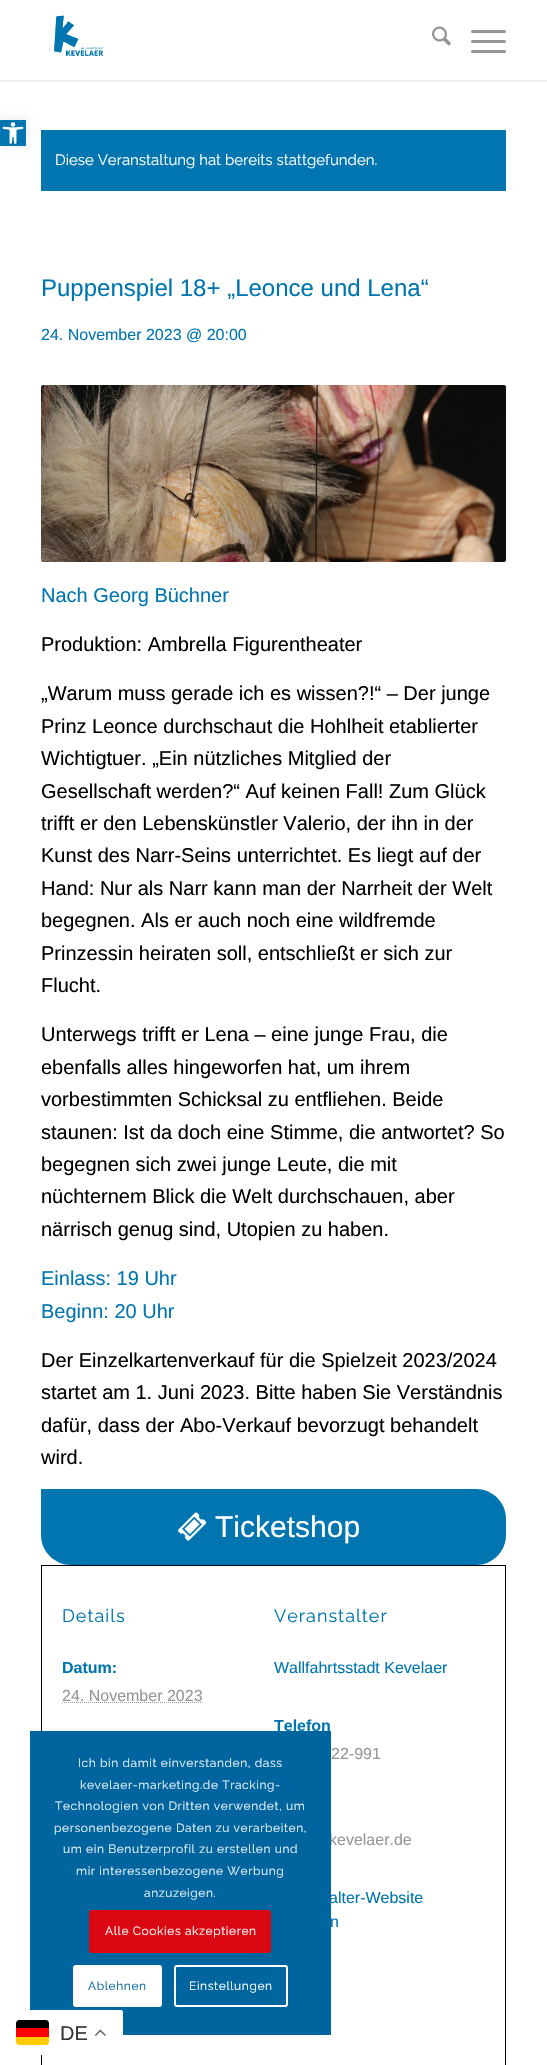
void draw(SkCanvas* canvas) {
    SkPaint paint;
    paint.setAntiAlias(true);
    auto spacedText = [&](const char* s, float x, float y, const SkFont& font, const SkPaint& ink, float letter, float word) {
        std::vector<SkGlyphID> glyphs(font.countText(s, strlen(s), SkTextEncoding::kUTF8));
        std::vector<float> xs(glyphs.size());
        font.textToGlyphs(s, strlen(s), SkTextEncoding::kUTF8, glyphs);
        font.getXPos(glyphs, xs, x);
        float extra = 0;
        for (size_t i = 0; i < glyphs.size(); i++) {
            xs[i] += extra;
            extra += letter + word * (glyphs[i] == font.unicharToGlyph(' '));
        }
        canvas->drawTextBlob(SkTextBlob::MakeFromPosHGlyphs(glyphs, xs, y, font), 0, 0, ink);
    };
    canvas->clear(0xFFFFFFFF);
    paint.setColor(0xFF0075AF);
    canvas->drawRect(SkRect::MakeXYWH(41, 130, 465, 61), paint);
    paint.setColor(0x1A000000);
    paint.setMaskFilter(SkMaskFilter::MakeBlur(kNormal_SkBlurStyle, 5));
    canvas->drawRect(SkRect::MakeXYWH(0, 120, 26, 26), paint);
    paint.setMaskFilter(nullptr);
    paint.setColor(0xFF0075AF);
    canvas->drawRect(SkRect::MakeXYWH(0, 120, 26, 26), paint);
    canvas->drawImageRect(SkImages::DeferredFromEncodedData(SkData::MakeFromFileName("img1.png")), SkRect::MakeXYWH(2, 122, 22, 22), SkSamplingOptions());
    canvas->save();
    canvas->clipRect(SkRect::MakeXYWH(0, 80, 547, 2));
    paint.setColor(0x1A000000);
    paint.setMaskFilter(SkMaskFilter::MakeBlur(kNormal_SkBlurStyle, 1));
    canvas->drawRect(SkRect::MakeXYWH(-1, -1, 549, 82), paint);
    paint.setMaskFilter(nullptr);
    canvas->restore();
    canvas->drawImageRect(SkImages::DeferredFromEncodedData(SkData::MakeFromFileName("img2.png")), SkRect::MakeXYWH(54, 15, 50, 41), SkSamplingOptions());
    canvas->drawImageRect(SkImages::DeferredFromEncodedData(SkData::MakeFromFileName("img3.png")), SkRect::MakeXYWH(432, 26, 19, 20), SkSamplingOptions());
    paint.setColor(0xFF969696);
    canvas->drawRoundRect(SkRect::MakeXYWH(471, 40, 35, 3), 1.5f, 1.5f, paint);
    canvas->drawRoundRect(SkRect::MakeXYWH(471, 30, 35, 3), 1.5f, 1.5f, paint);
    canvas->drawRoundRect(SkRect::MakeXYWH(471, 50, 35, 3), 1.5f, 1.5f, paint);
    SkFont font1(fontMgr->matchFamilyStyle("Raleway", SkFontStyle(100, SkFontStyle::kNormal_Width, SkFontStyle::kUpright_Slant)), 15);
    font1.setSubpixel(true);
    paint.setColor(0xFFFFFFFF);
    canvas->drawString("Diese Veranstaltung hat bereits stattgefunden.", 55, 165, font1, paint);
    SkFont font2(fontMgr->matchFamilyStyle("Liberation Sans", SkFontStyle::Normal()), 24);
    font2.setSubpixel(true);
    paint.setColor(0xFF0075AF);
    canvas->drawString("Puppenspiel 18+ „Leonce und Lena“", 41, 296, font2, paint);
    SkFont font3(fontMgr->matchFamilyStyle("Liberation Sans", SkFontStyle::Normal()), 16);
    font3.setSubpixel(true);
    canvas->drawString("24. November 2023 @ 20:00", 41, 340, font3, paint);
    canvas->drawImageRect(SkImages::DeferredFromEncodedData(SkData::MakeFromFileName("img4.png")), SkRect::MakeXYWH(41, 385, 465, 177), SkSamplingOptions());
    SkFont font4(fontMgr->matchFamilyStyle("Liberation Sans", SkFontStyle::Normal()), 20);
    font4.setSubpixel(true);
    canvas->drawString("Nach Georg Büchner", 41, 602, font4, paint);
    paint.setColor(0xFF000000);
    canvas->drawString("Produktion: Ambrella Figurentheater", 41, 651, font4, paint);
    canvas->drawString("„Warum muss gerade ich es wissen?!“ – Der junge", 41, 700, font4, paint);
    canvas->drawString("Prinz Leonce durchschaut die Hohlheit etablierter", 41, 733, font4, paint);
    canvas->drawString("Wichtigtuer. „Ein nützliches Mitglied der", 41, 765, font4, paint);
    canvas->drawString("Gesellschaft werden?“ Auf keinen Fall! Zum Glück", 41, 798, font4, paint);
    canvas->drawString("trifft er den Lebenskünstler Valerio, der ihn in der", 41, 830, font4, paint);
    canvas->drawString("Kunst des Narr-Seins unterrichtet. Es liegt auf der", 41, 862, font4, paint);
    canvas->drawString("Hand: Nur als Narr kann man der Narrheit der Welt", 41, 895, font4, paint);
    canvas->drawString("begegnen. Als er auch noch eine wildfremde", 41, 927, font4, paint);
    canvas->drawString("Prinzessin heiraten soll, entschließt er sich zur", 41, 960, font4, paint);
    canvas->drawString("Flucht.", 41, 992, font4, paint);
    canvas->drawString("Unterwegs trifft er Lena – eine junge Frau, die", 41, 1041, font4, paint);
    canvas->drawString("ebenfalls alles hingeworfen hat, um ihrem", 41, 1074, font4, paint);
    canvas->drawString("vorbestimmten Schicksal zu entfliehen. Beide", 41, 1106, font4, paint);
    canvas->drawString("staunen: Ist da doch eine Stimme, die antwortet? So", 41, 1139, font4, paint);
    canvas->drawString("begegnen sich zwei junge Leute, die mit", 41, 1171, font4, paint);
    canvas->drawString("nüchternem Blick die Welt durchschauen, aber", 41, 1203, font4, paint);
    canvas->drawString("närrisch genug sind, Utopien zu haben.", 41, 1236, font4, paint);
    paint.setColor(0xFF0075AF);
    canvas->drawString("Einlass: 19 Uhr", 41, 1285, font4, paint);
    canvas->drawString("Beginn: 20 Uhr", 41, 1318, font4, paint);
    paint.setColor(0xFF000000);
    canvas->drawString("Der Einzelkartenverkauf für die Spielzeit 2023/2024", 41, 1367, font4, paint);
    canvas->drawString("startet am 1. Juni 2023. Bitte haben Sie Verständnis", 41, 1399, font4, paint);
    canvas->drawString("dafür, dass der Abo-Verkauf bevorzugt behandelt", 41, 1432, font4, paint);
    canvas->drawString("wird.", 41, 1464, font4, paint);
    paint.setColor(0xFF0075AF);
    canvas->drawPath(SkPathBuilder().moveTo(41, 1489).lineTo(476, 1489).cubicTo(492.5f, 1489, 506, 1502.5f, 506, 1519).lineTo(506, 1535).cubicTo(506, 1551.5f, 492.5f, 1565, 476, 1565).lineTo(71, 1565).cubicTo(54.5f, 1565, 41, 1551.5f, 41, 1535).close().detach(), paint);
    canvas->drawImageRect(SkImages::DeferredFromEncodedData(SkData::MakeFromFileName("img5.png")), SkRect::MakeXYWH(178, 1512, 29, 29), SkSamplingOptions());
    SkFont font5(fontMgr->matchFamilyStyle("Liberation Sans", SkFontStyle::Normal()), 30);
    font5.setSubpixel(true);
    paint.setColor(0xFFFFFFFF);
    canvas->drawString("Ticketshop", 215, 1537, font5, paint);
    paint.setStyle(SkPaint::kStroke_Style);
    paint.setStrokeWidth(1);
    paint.setColor(0xFF000000);
    canvas->drawRect(SkRect::MakeXYWH(41.5f, 1565.5f, 464, 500), paint);
    SkFont font6(fontMgr->matchFamilyStyle("Raleway", SkFontStyle(100, SkFontStyle::kNormal_Width, SkFontStyle::kUpright_Slant)), 18);
    font6.setSubpixel(true);
    paint.setStyle(SkPaint::kFill_Style);
    paint.setColor(0xFF0075AF);
    spacedText("Details", 62, 1622, font6, paint, 1, 0);
    SkFont font7(fontMgr->matchFamilyStyle("Liberation Sans", SkFontStyle::Bold()), 16);
    font7.setSubpixel(true);
    canvas->drawString("Datum:", 62, 1673, font7, paint);
    paint.setColor(0xFF969696);
    canvas->drawString("24. November 2023", 62, 1701, font3, paint);
    paint.setStyle(SkPaint::kStroke_Style);
    paint.setPathEffect(SkDashPathEffect::Make({{1, 1}}, 0));
    canvas->drawPath(SkPathBuilder().moveTo(62, 1702.5f).lineTo(202.5f, 1702.5f).detach(), paint);
    paint.setPathEffect(nullptr);
    paint.setStyle(SkPaint::kFill_Style);
    paint.setColor(0xFF0075AF);
    spacedText("Veranstalter", 274, 1622, font6, paint, 1, 0);
    canvas->drawString("Wallfahrtsstadt Kevelaer", 274, 1673, font3, paint);
    canvas->drawString("Telefon", 274, 1731, font7, paint);
    paint.setColor(0xFF969696);
    canvas->drawString("22-991", 331, 1759, font3, paint);
    canvas->drawString("kevelaer.de", 329, 1845, font3, paint);
    paint.setColor(0xFF0075AF);
    canvas->drawString("alter-Website", 329, 1903, font3, paint);
    canvas->drawString("n", 330, 1927, font3, paint);
    paint.setColor(0xFF00659F);
    canvas->drawRect(SkRect::MakeXYWH(30, 1731, 301, 304), paint);
    SkFont font8(fontMgr->matchFamilyStyle("Raleway", SkFontStyle(100, SkFontStyle::kNormal_Width, SkFontStyle::kUpright_Slant)), 12);
    font8.setSubpixel(true);
    paint.setColor(0xFFE6F0F5);
    spacedText("Ich bin damit einverstanden, dass", 78, 1767, font8, paint, 0.6f, 0);
    spacedText("kevelaer-marketing.de Tracking-", 80, 1789, font8, paint, 0.6f, 0);
    spacedText("Technologien von Dritten verwendet, um", 55, 1810, font8, paint, 0.6f, 0);
    spacedText("personenbezogene Daten zu verarbeiten,", 54, 1832, font8, paint, 0.6f, 0);
    spacedText("um ein Benutzerprofil zu erstellen und", 63, 1853, font8, paint, 0.6f, 0);
    spacedText("mir interessenbezogene Werbung", 76, 1875, font8, paint, 0.6f, 0);
    spacedText("anzuzeigen.", 144, 1897, font8, paint, 0.6f, 0);
    paint.setColor(0xFFDA0812);
    canvas->drawRoundRect(SkRect::MakeXYWH(90, 1911, 180, 41), 2, 2, paint);
    paint.setStyle(SkPaint::kStroke_Style);
    paint.setStrokeWidth(2);
    canvas->drawRoundRect(SkRect::MakeXYWH(90, 1911, 180, 41), 2, 2, paint);
    paint.setStyle(SkPaint::kFill_Style);
    paint.setColor(0xFFFFFFFF);
    spacedText("Alle Cookies akzeptieren", 105, 1935, font8, paint, 0.6f, 0);
    canvas->drawRoundRect(SkRect::MakeXYWH(74, 1966, 87, 40), 2, 2, paint);
    paint.setStyle(SkPaint::kStroke_Style);
    canvas->drawRoundRect(SkRect::MakeXYWH(74, 1966, 87, 40), 2, 2, paint);
    paint.setStyle(SkPaint::kFill_Style);
    paint.setColor(0xFF00659F);
    spacedText("Ablehnen", 88, 1990, font8, paint, 0.6f, 0);
    paint.setStyle(SkPaint::kStroke_Style);
    paint.setColor(0xFFFFFFFF);
    canvas->drawRoundRect(SkRect::MakeXYWH(175, 1966, 112, 40), 2, 2, paint);
    paint.setStyle(SkPaint::kFill_Style);
    spacedText("Einstellungen", 189, 1990, font8, paint, 0.6f, 0);
    canvas->drawRoundRect(SkRect::MakeXYWH(1, 2010, 122, 45), 2, 2, paint);
    paint.setColor(0xFFFFCC00);
    canvas->drawPath(SkPathBuilder().moveTo(16, 2037).lineTo(49, 2037).lineTo(49, 2042).cubicTo(49, 2043.5f, 47.5f, 2045, 46, 2045).lineTo(19, 2045).cubicTo(17.5f, 2045, 16, 2043.5f, 16, 2042).close().detach(), paint);
    paint.setColor(0xFF000000);
    canvas->drawPath(SkPathBuilder().moveTo(19, 2020).lineTo(46, 2020).cubicTo(47.5f, 2020, 49, 2021.5f, 49, 2023).lineTo(49, 2028).lineTo(16, 2028).lineTo(16, 2023).cubicTo(16, 2021.5f, 17.5f, 2020, 19, 2020).close().detach(), paint);
    paint.setColor(0xFFFF0000);
    canvas->drawRect(SkRect::MakeXYWH(16, 2028, 33, 9), paint);
    paint.setColor(0xFF333333);
    canvas->drawString("DE", 60, 2040, font4, paint);
    canvas->drawImageRect(SkImages::DeferredFromEncodedData(SkData::MakeFromFileName("img6.png")), SkRect::MakeXYWH(95, 2029, 11, 7), SkSamplingOptions());
}
